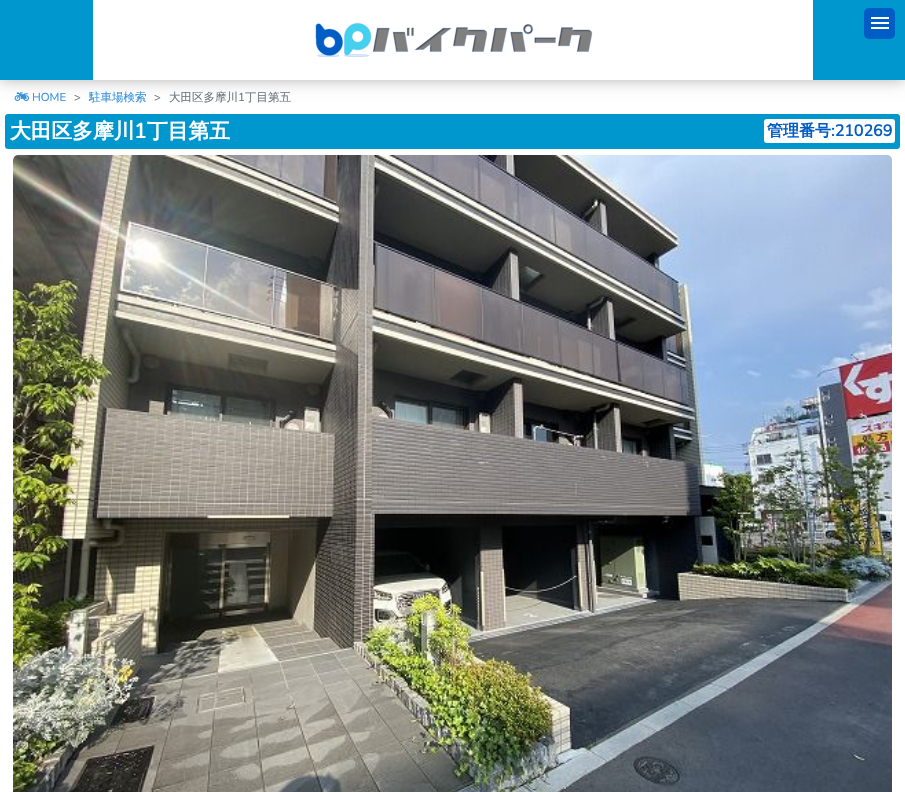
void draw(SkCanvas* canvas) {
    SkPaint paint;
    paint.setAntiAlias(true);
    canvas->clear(0xFFFFFFFF);
    paint.setColor(0x4D000000);
    paint.setMaskFilter(SkMaskFilter::MakeBlur(kNormal_SkBlurStyle, 7.5f));
    canvas->drawRect(SkRect::MakeXYWH(0, 0, 905, 80), paint);
    paint.setMaskFilter(nullptr);
    paint.setColor(0xFF0097CE);
    canvas->drawRect(SkRect::MakeXYWH(0, 0, 905, 80), paint);
    paint.setColor(0xFFFFFFFF);
    canvas->drawRect(SkRect::MakeXYWH(93, 0, 720, 80), paint);
    canvas->drawImageRect(SkImages::DeferredFromEncodedData(SkData::MakeFromFileName("img1.png")), SkRect::MakeXYWH(315, 22, 278, 36), SkSamplingOptions());
    paint.setColor(0xFF005DC5);
    canvas->drawRoundRect(SkRect::MakeXYWH(864, 8, 31, 31), 5, 5, paint);
    paint.setColor(0xFFFFFFFF);
    canvas->drawRect(SkRect::MakeXYWH(871, 22, 18, 2), paint);
    canvas->drawRect(SkRect::MakeXYWH(871, 17, 18, 2), paint);
    canvas->drawRect(SkRect::MakeXYWH(871, 27, 18, 2), paint);
    canvas->drawImageRect(SkImages::DeferredFromEncodedData(SkData::MakeFromFileName("img2.png")), SkRect::MakeXYWH(14, 92, 15, 9), SkSamplingOptions());
    SkFont font1(fontMgr->matchFamilyStyle("Nunito", SkFontStyle(200, SkFontStyle::kNormal_Width, SkFontStyle::kUpright_Slant)), 11.5f);
    font1.setSubpixel(true);
    paint.setColor(0xFF3490DC);
    canvas->drawString("HOME", 32, 101, font1, paint);
    paint.setColor(0xFF6C757D);
    canvas->drawString(">", 74, 101, font1, paint);
    SkFont font2(fontMgr->matchFamilyStyle("WenQuanYi Zen Hei", SkFontStyle(500, SkFontStyle::kNormal_Width, SkFontStyle::kUpright_Slant)), 11.5f);
    font2.setSubpixel(true);
    paint.setColor(0xFF3490DC);
    canvas->drawString("駐車場検索", 89, 101, font2, paint);
    paint.setColor(0xFF6C757D);
    canvas->drawString(">", 154, 101, font1, paint);
    canvas->drawString("大田区多摩川", 169, 101, font2, paint);
    canvas->drawString("1", 238, 101, font1, paint);
    canvas->drawString("丁目第五", 245, 101, font2, paint);
    paint.setColor(0xFF0097CE);
    canvas->drawRoundRect(SkRect::MakeXYWH(5, 114, 895, 35), 3, 3, paint);
    SkFont font3(fontMgr->matchFamilyStyle("WenQuanYi Zen Hei", SkFontStyle::Bold()), 20.75f);
    font3.setSubpixel(true);
    paint.setColor(0xFFFFFFFF);
    canvas->drawString("大田区多摩川", 10, 138, font3, paint);
    SkFont font4(fontMgr->matchFamilyStyle("Nunito", SkFontStyle::Bold()), 20.75f);
    font4.setSubpixel(true);
    canvas->drawString("1", 134, 138, font4, paint);
    canvas->drawString("丁目第五", 147, 138, font3, paint);
    canvas->drawRoundRect(SkRect::MakeXYWH(764, 119, 131, 24), 3, 3, paint);
    SkFont font5(fontMgr->matchFamilyStyle("WenQuanYi Zen Hei", SkFontStyle::Bold()), 16);
    font5.setSubpixel(true);
    paint.setColor(0xFF005DC5);
    canvas->drawString("管理番号", 767, 136, font5, paint);
    SkFont font6(fontMgr->matchFamilyStyle("Nunito", SkFontStyle::Bold()), 16);
    font6.setSubpixel(true);
    canvas->drawString(":210269", 831, 136, font6, paint);
    canvas->drawImageRect(SkImages::DeferredFromEncodedData(SkData::MakeFromFileName("img3.png")), SkRect::MakeXYWH(13, 155, 879, 637), SkSamplingOptions());
}
